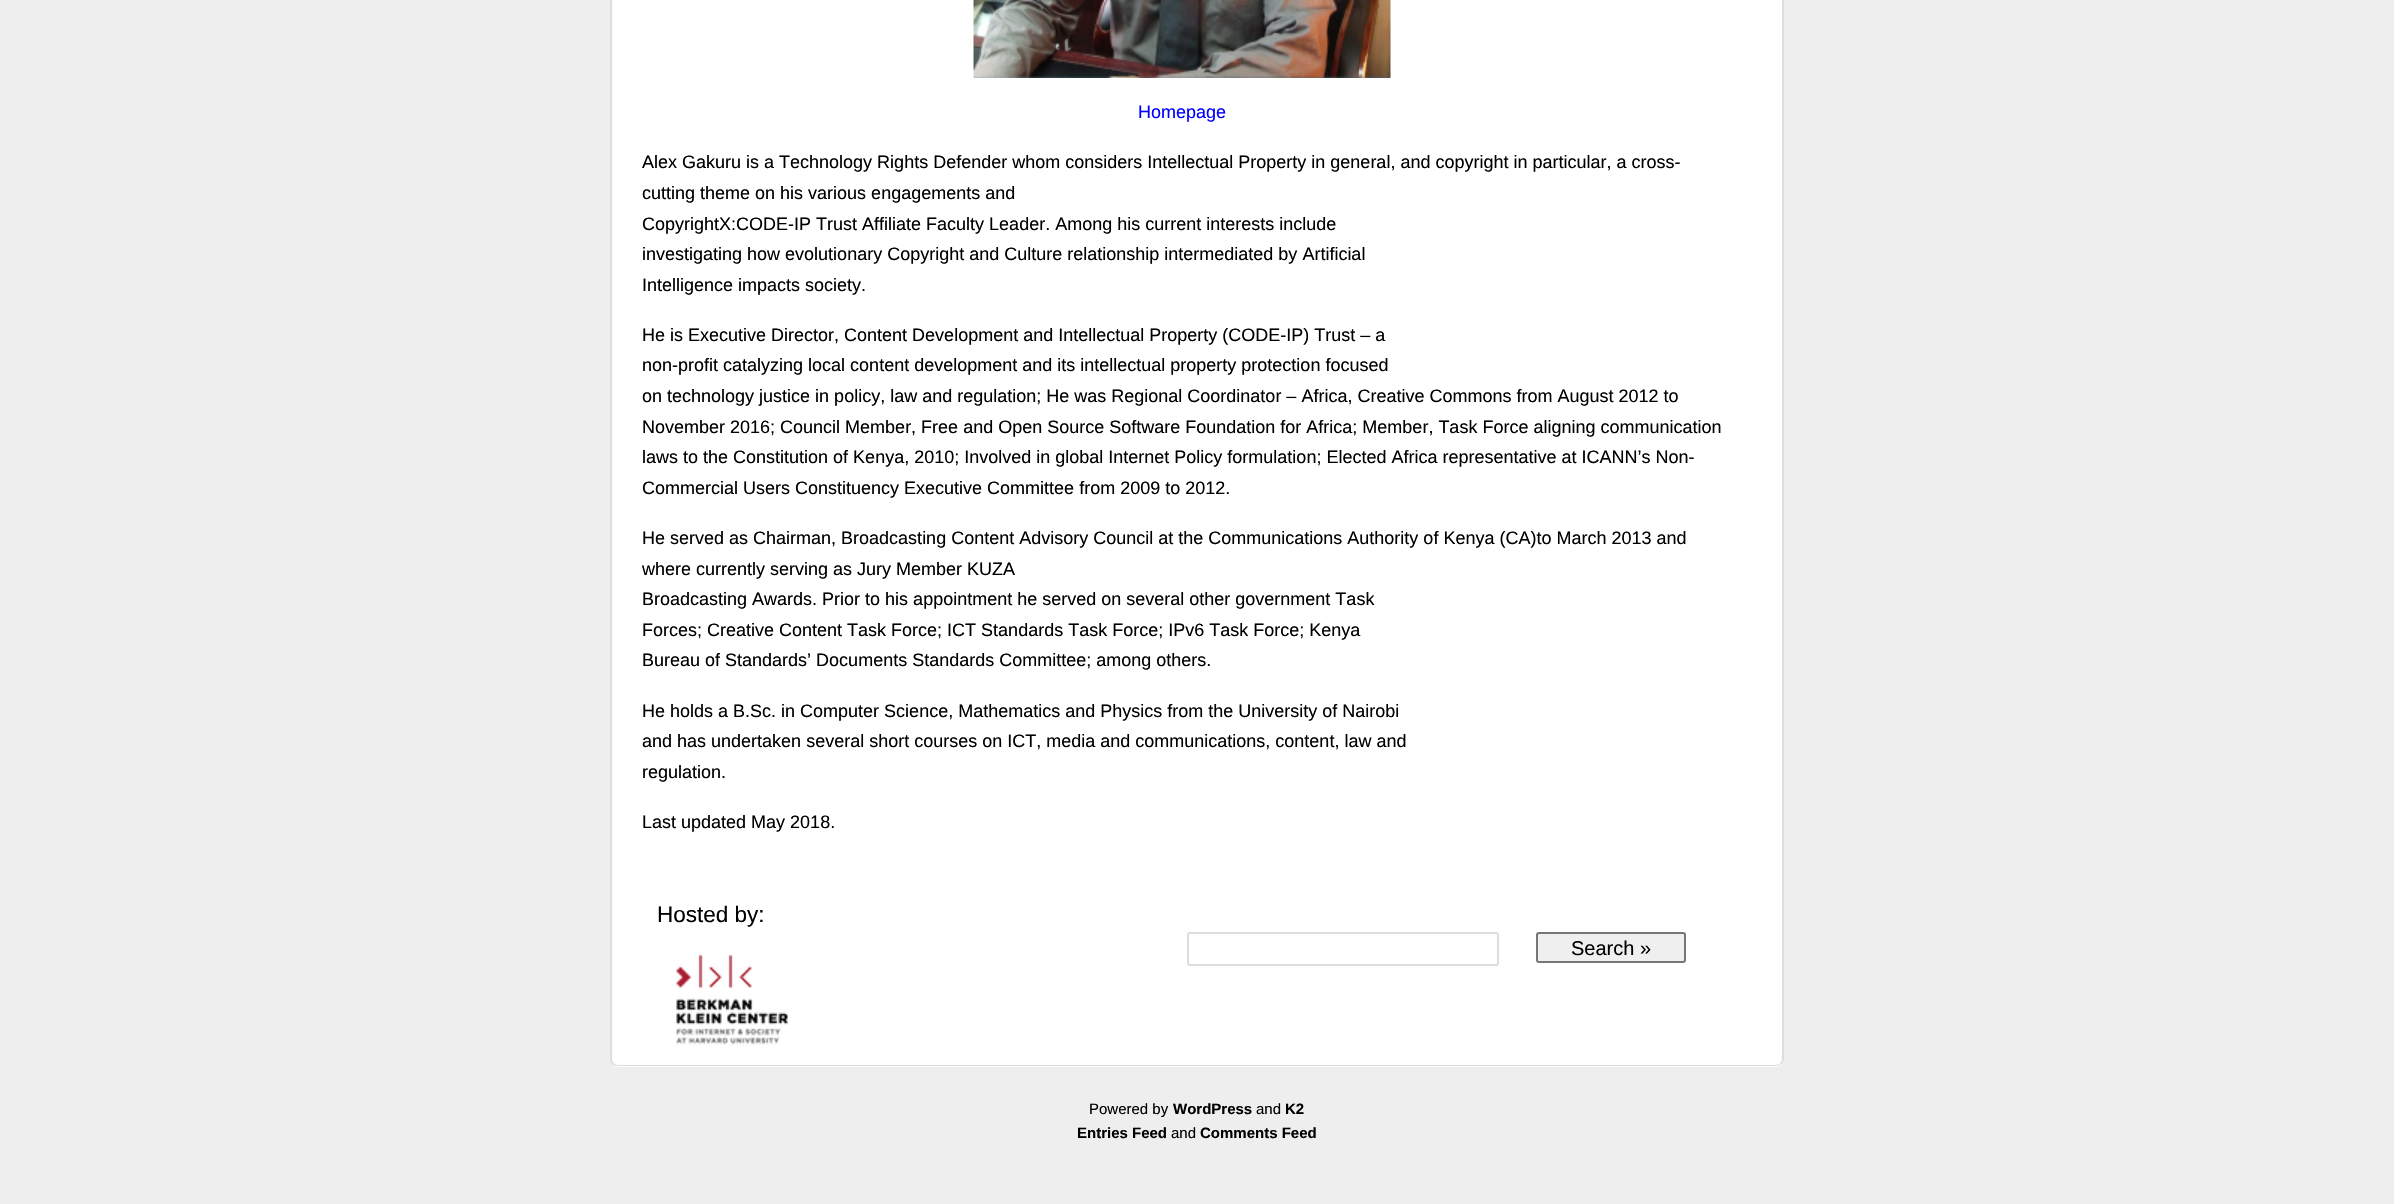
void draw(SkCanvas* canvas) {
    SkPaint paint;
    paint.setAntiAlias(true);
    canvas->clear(0xFFEEEEEE);
    paint.setColor(0xFFFFFFFF);
    canvas->drawPath(SkPathBuilder().moveTo(611, -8).lineTo(1784, -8).lineTo(1784, 1059).cubicTo(1784, 1063.5f, 1780.5f, 1067, 1776, 1067).lineTo(619, 1067).cubicTo(614.5f, 1067, 611, 1063.5f, 611, 1059).close().detach(), paint);
    paint.setColor(0xFFDDDDDD);
    canvas->drawPath(SkPathBuilder(SkPathFillType::kEvenOdd).moveTo(610, -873).lineTo(1784, -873).lineTo(1784, 1059).cubicTo(1784, 1063, 1780, 1066, 1776, 1066).lineTo(618, 1066).cubicTo(614, 1066, 610, 1063, 610, 1059).close().moveTo(612, -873).lineTo(1782, -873).lineTo(1782, 1059).cubicTo(1782, 1062, 1779, 1065, 1776, 1065).lineTo(618, 1065).cubicTo(615, 1065, 612, 1062, 612, 1059).close().detach(), paint);
    canvas->drawImageRect(SkImages::DeferredFromEncodedData(SkData::MakeFromFileName("img1.png")), SkRect::MakeXYWH(973, 0, 418, 78), SkSamplingOptions());
    SkFont font1(fontMgr->matchFamilyStyle("Liberation Sans", SkFontStyle::Normal()), 18);
    font1.setSubpixel(true);
    paint.setColor(0xFF0000FF);
    canvas->drawString("Homepage", 1138, 118, font1, paint);
    paint.setColor(0xFF000000);
    canvas->drawString("Alex Gakuru is a Technology Rights Defender whom considers Intellectual Property in general, and copyright in particular, a cross-", 642, 168, font1, paint);
    canvas->drawString("cutting theme on his various engagements and", 642, 199, font1, paint);
    canvas->drawString("CopyrightX:CODE-IP Trust Affiliate Faculty Leader. Among his current interests include", 642, 230, font1, paint);
    canvas->drawString("investigating how evolutionary Copyright and Culture relationship intermediated by Artificial", 642, 260, font1, paint);
    canvas->drawString("Intelligence impacts society.", 642, 291, font1, paint);
    canvas->drawString("He is Executive Director, Content Development and Intellectual Property (CODE-IP) Trust – a", 642, 341, font1, paint);
    canvas->drawString("non-profit catalyzing local content development and its intellectual property protection focused", 642, 371, font1, paint);
    canvas->drawString("on technology justice in policy, law and regulation; He was Regional Coordinator – Africa, Creative Commons from August 2012 to", 642, 402, font1, paint);
    canvas->drawString("November 2016; Council Member, Free and Open Source Software Foundation for Africa; Member, Task Force aligning communication", 642, 433, font1, paint);
    canvas->drawString("laws to the Constitution of Kenya, 2010; Involved in global Internet Policy formulation; Elected Africa representative at ICANN’s Non-", 642, 463, font1, paint);
    canvas->drawString("Commercial Users Constituency Executive Committee from 2009 to 2012.", 642, 494, font1, paint);
    canvas->drawString("He served as Chairman, Broadcasting Content Advisory Council at the Communications Authority of Kenya (CA)to March 2013 and", 642, 544, font1, paint);
    canvas->drawString("where currently serving as Jury Member KUZA", 642, 575, font1, paint);
    canvas->drawString("Broadcasting Awards. Prior to his appointment he served on several other government Task", 642, 605, font1, paint);
    canvas->drawString("Forces; Creative Content Task Force; ICT Standards Task Force; IPv6 Task Force; Kenya", 642, 636, font1, paint);
    canvas->drawString("Bureau of Standards’ Documents Standards Committee; among others.", 642, 666, font1, paint);
    canvas->drawString("He holds a B.Sc. in Computer Science, Mathematics and Physics from the University of Nairobi", 642, 717, font1, paint);
    canvas->drawString("and has undertaken several short courses on ICT, media and communications, content, law and", 642, 747, font1, paint);
    canvas->drawString("regulation.", 642, 778, font1, paint);
    canvas->drawString("Last updated May 2018.", 642, 828, font1, paint);
    SkFont font2(fontMgr->matchFamilyStyle("Liberation Sans", SkFontStyle::Normal()), 22.5f);
    font2.setSubpixel(true);
    canvas->drawString("Hosted by:", 657, 922, font2, paint);
    canvas->drawImageRect(SkImages::DeferredFromEncodedData(SkData::MakeFromFileName("img2.png")), SkRect::MakeXYWH(676, 954, 113, 91), SkSamplingOptions());
    paint.setStyle(SkPaint::kStroke_Style);
    paint.setStrokeWidth(2);
    paint.setColor(0xFFDDDDDD);
    canvas->drawRoundRect(SkRect::MakeXYWH(1188, 933, 310, 32), 2, 2, paint);
    paint.setStyle(SkPaint::kFill_Style);
    paint.setColor(0xFFEFEFEF);
    canvas->drawRoundRect(SkRect::MakeXYWH(1537, 933, 148, 29), 2, 2, paint);
    paint.setStyle(SkPaint::kStroke_Style);
    paint.setColor(0xFF767676);
    canvas->drawRoundRect(SkRect::MakeXYWH(1537, 933, 148, 29), 2, 2, paint);
    SkFont font3(fontMgr->matchFamilyStyle("Liberation Sans", SkFontStyle::Normal()), 20);
    font3.setSubpixel(true);
    paint.setStyle(SkPaint::kFill_Style);
    paint.setColor(0xFF000000);
    canvas->drawString("Search »", 1571, 955, font3, paint);
    SkFont font4(fontMgr->matchFamilyStyle("Liberation Sans", SkFontStyle::Normal()), 15);
    font4.setSubpixel(true);
    canvas->drawString("Powered by", 1089, 1114, font4, paint);
    SkFont font5(fontMgr->matchFamilyStyle("Liberation Sans", SkFontStyle::Bold()), 15);
    font5.setSubpixel(true);
    canvas->drawString("WordPress", 1173, 1114, font5, paint);
    canvas->drawString("and", 1256, 1114, font4, paint);
    canvas->drawString("K2", 1285, 1114, font5, paint);
    canvas->drawString("Entries Feed", 1077, 1138, font5, paint);
    canvas->drawString("and", 1171, 1138, font4, paint);
    canvas->drawString("Comments Feed", 1200, 1138, font5, paint);
}
